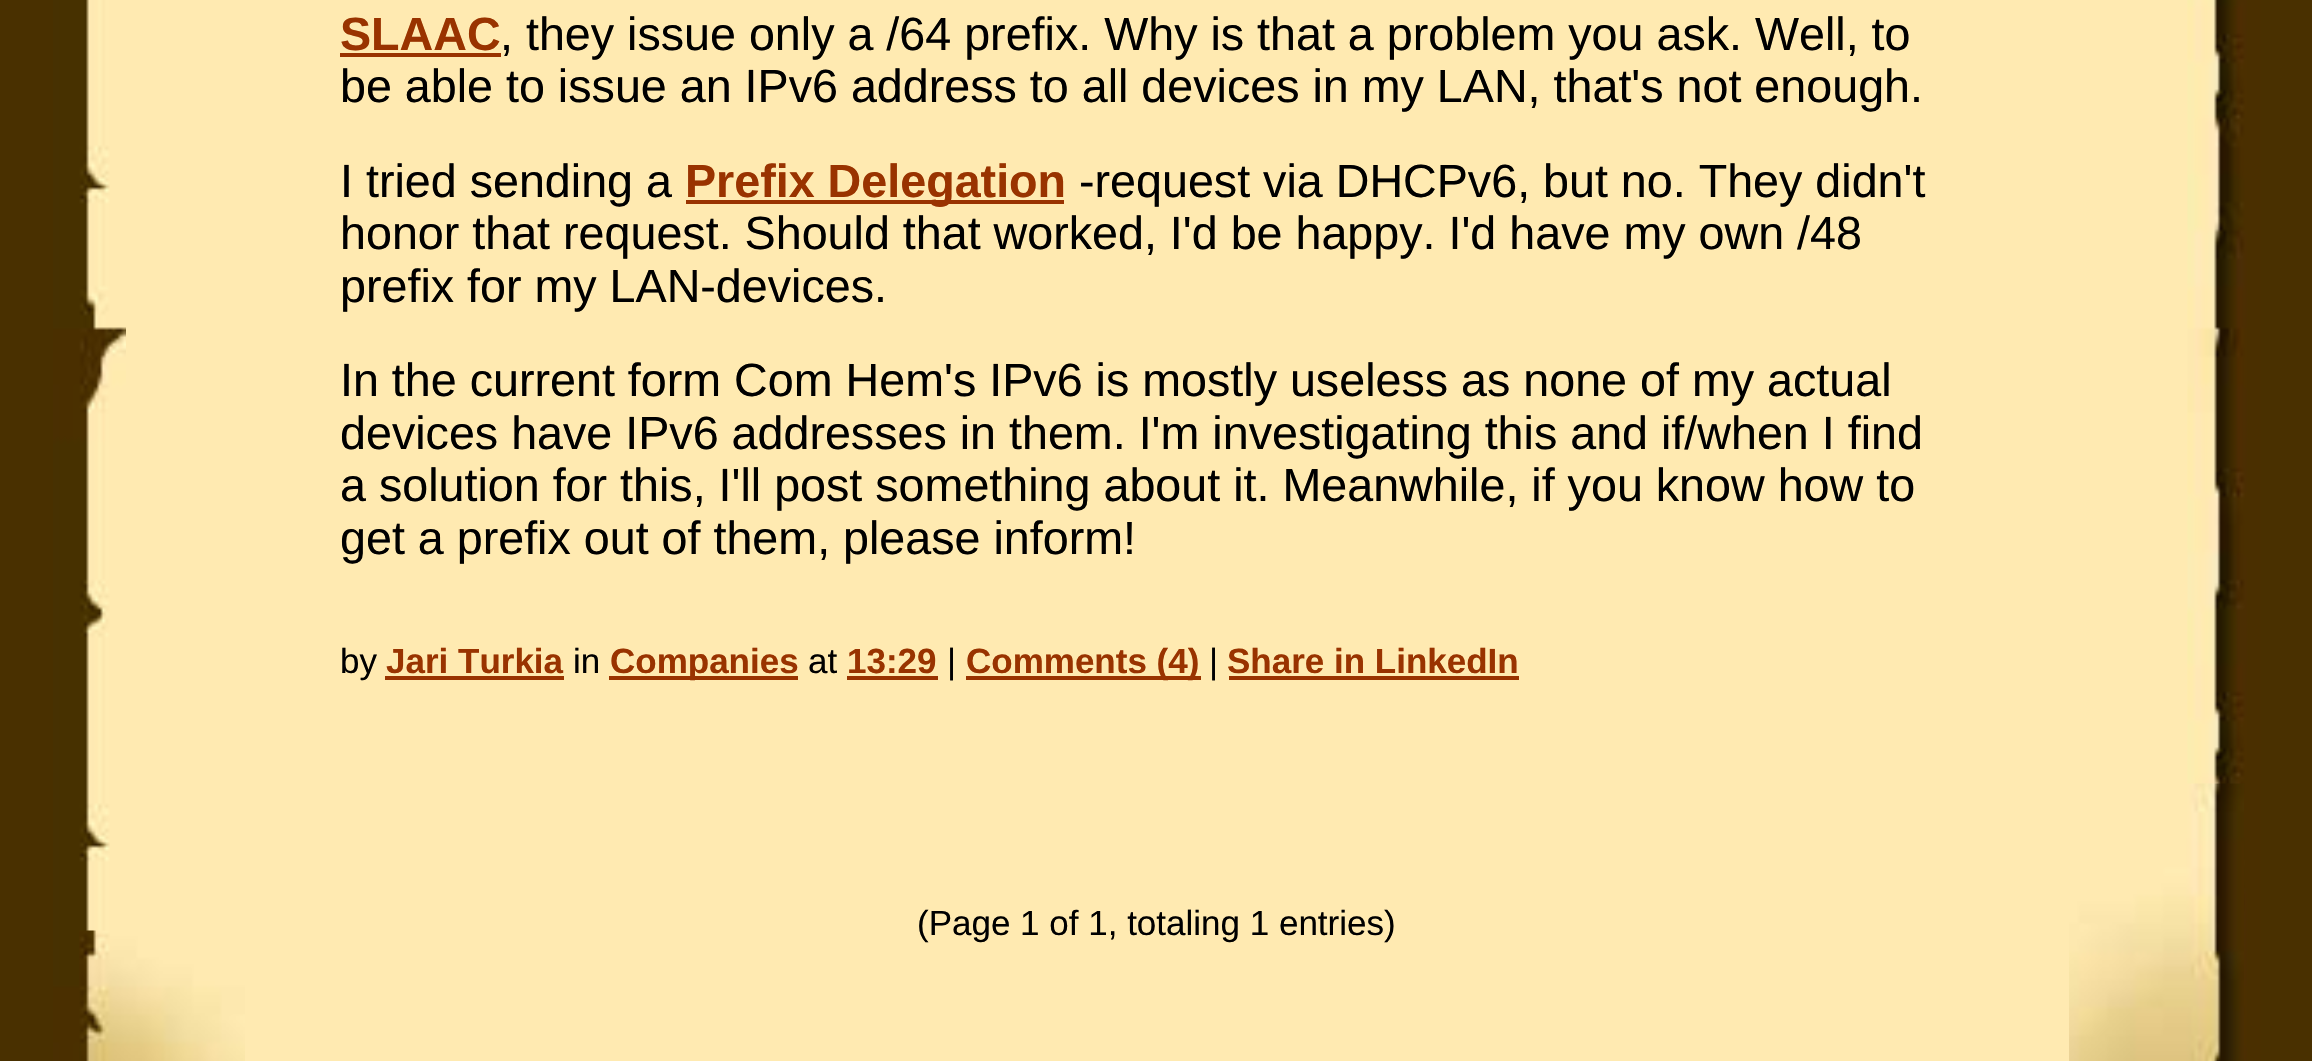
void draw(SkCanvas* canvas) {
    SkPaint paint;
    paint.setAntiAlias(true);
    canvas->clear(0xFF493000);
    paint.setColor(0xFFFFEAB1);
    canvas->drawRect(SkRect::MakeXYWH(126, 0, 2062, 931), paint);
    canvas->drawImageRect(SkImages::DeferredFromEncodedData(SkData::MakeFromFileName("img1.png")), SkRect::MakeXYWH(53, 0, 73, 1061), SkSamplingOptions());
    canvas->drawImageRect(SkImages::DeferredFromEncodedData(SkData::MakeFromFileName("img2.png")), SkRect::MakeXYWH(2187, 0, 74, 1061), SkSamplingOptions());
    canvas->drawImageRect(SkImages::DeferredFromEncodedData(SkData::MakeFromFileName("img3.png")), SkRect::MakeXYWH(79, 930, 166, 131), SkSamplingOptions());
    canvas->drawImageRect(SkImages::DeferredFromEncodedData(SkData::MakeFromFileName("img4.png")), SkRect::MakeXYWH(2069, 783, 175, 278), SkSamplingOptions());
    canvas->drawRect(SkRect::MakeXYWH(245, 931, 1824, 130), paint);
    SkFont font1(fontMgr->matchFamilyStyle("Liberation Sans", SkFontStyle::Bold()), 46.65f);
    font1.setSubpixel(true);
    paint.setColor(0xFF993300);
    canvas->drawString("SLAAC", 340, 50, font1, paint);
    canvas->drawRect(SkRect::MakeXYWH(340, 53, 161, 4), paint);
    SkFont font2(fontMgr->matchFamilyStyle("Liberation Sans", SkFontStyle::Normal()), 46.65f);
    font2.setSubpixel(true);
    paint.setColor(0xFF000000);
    canvas->drawString(", they issue only a /64 prefix. Why is that a problem you ask. Well, to", 500, 50, font2, paint);
    canvas->drawString("be able to issue an IPv6 address to all devices in my LAN, that's not enough.", 340, 102, font2, paint);
    canvas->drawString("I tried sending a", 340, 197, font2, paint);
    paint.setColor(0xFF993300);
    canvas->drawRect(SkRect::MakeXYWH(686, 200, 378, 4), paint);
    canvas->drawString("Prefix Delegation", 685, 197, font1, paint);
    paint.setColor(0xFF000000);
    canvas->drawString("-request via DHCPv6, but no. They didn't", 1079, 197, font2, paint);
    canvas->drawString("honor that request. Should that worked, I'd be happy. I'd have my own /48", 340, 249, font2, paint);
    canvas->drawString("prefix for my LAN-devices.", 340, 302, font2, paint);
    canvas->drawString("In the current form Com Hem's IPv6 is mostly useless as none of my actual", 340, 396, font2, paint);
    canvas->drawString("devices have IPv6 addresses in them. I'm investigating this and if/when I find", 340, 449, font2, paint);
    canvas->drawString("a solution for this, I'll post something about it. Meanwhile, if you know how to", 340, 501, font2, paint);
    canvas->drawString("get a prefix out of them, please inform!", 340, 554, font2, paint);
    SkFont font3(fontMgr->matchFamilyStyle("Liberation Sans", SkFontStyle::Normal()), 35);
    font3.setSubpixel(true);
    canvas->drawString("by", 340, 673, font3, paint);
    SkFont font4(fontMgr->matchFamilyStyle("Liberation Sans", SkFontStyle::Bold()), 35);
    font4.setSubpixel(true);
    paint.setColor(0xFF993300);
    canvas->drawString("Jari Turkia", 386, 673, font4, paint);
    canvas->drawRect(SkRect::MakeXYWH(385, 676, 179, 4), paint);
    paint.setColor(0xFF000000);
    canvas->drawString("in", 573, 673, font3, paint);
    paint.setColor(0xFF993300);
    canvas->drawRect(SkRect::MakeXYWH(609, 676, 189, 4), paint);
    canvas->drawString("Companies", 610, 673, font4, paint);
    paint.setColor(0xFF000000);
    canvas->drawString("at", 808, 673, font3, paint);
    paint.setColor(0xFF993300);
    canvas->drawString("13:29", 847, 673, font4, paint);
    canvas->drawRect(SkRect::MakeXYWH(847, 676, 91, 4), paint);
    paint.setColor(0xFF000000);
    canvas->drawString("|", 947, 673, font3, paint);
    paint.setColor(0xFF993300);
    canvas->drawRect(SkRect::MakeXYWH(966, 676, 235, 4), paint);
    canvas->drawString("Comments (4)", 966, 673, font4, paint);
    paint.setColor(0xFF000000);
    canvas->drawString("|", 1209, 673, font3, paint);
    paint.setColor(0xFF993300);
    canvas->drawString("Share in LinkedIn", 1227, 673, font4, paint);
    canvas->drawRect(SkRect::MakeXYWH(1229, 676, 290, 4), paint);
    paint.setColor(0xFF000000);
    canvas->drawString("(Page 1 of 1, totaling 1 entries)", 917, 935, font3, paint);
}
